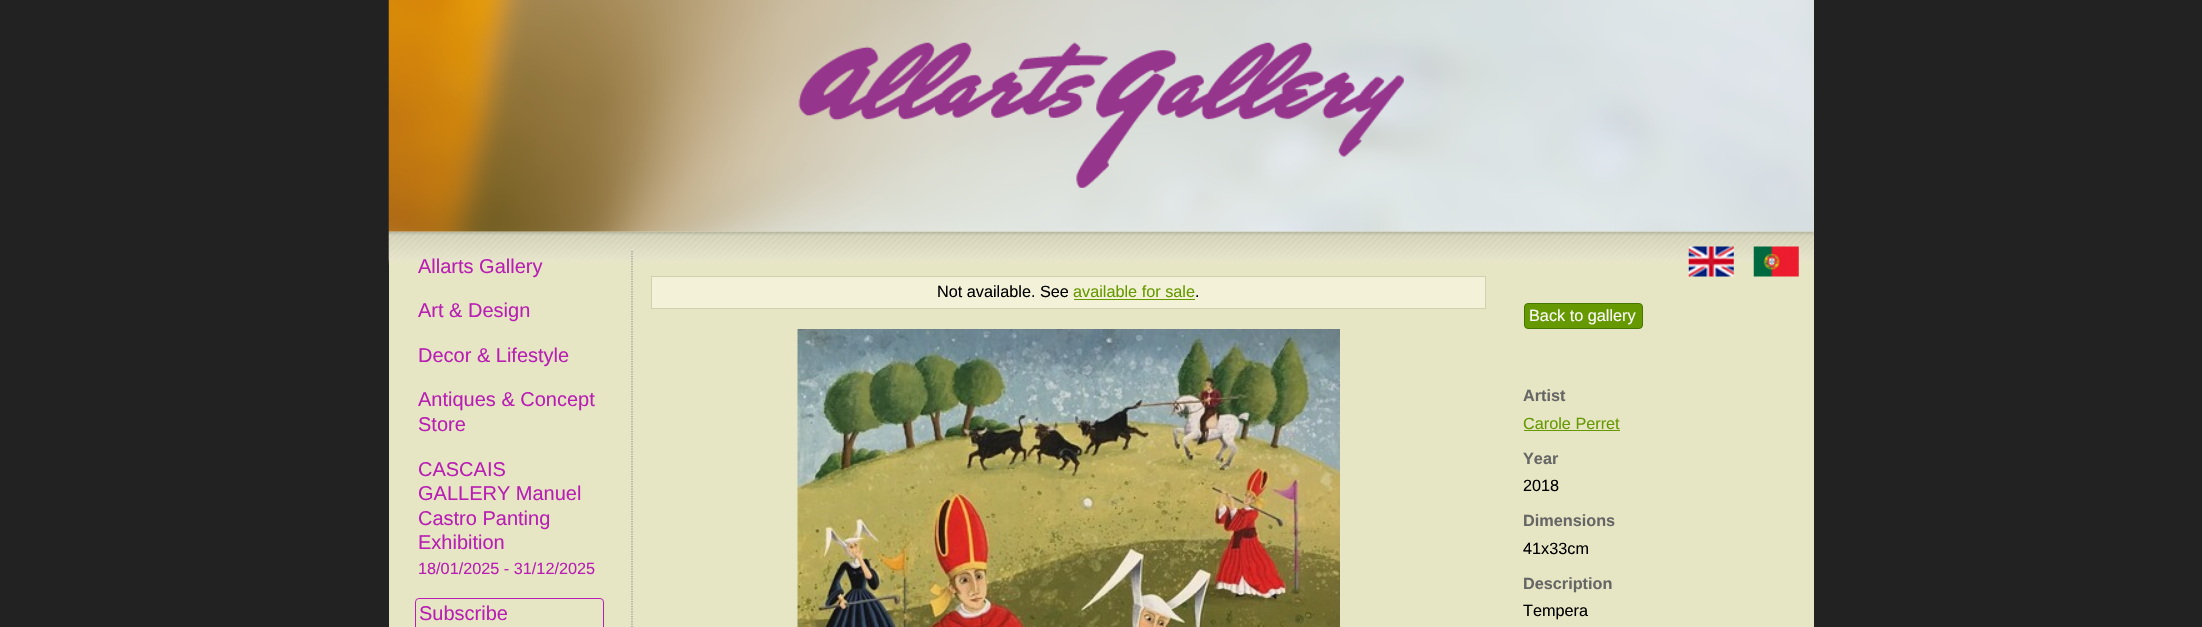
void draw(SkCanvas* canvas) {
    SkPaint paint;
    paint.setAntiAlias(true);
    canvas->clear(0xFF222222);
    paint.setColor(0xFFE7E6C4);
    canvas->drawRect(SkRect::MakeXYWH(389, 0, 1425, 627), paint);
    canvas->drawImageRect(SkImages::DeferredFromEncodedData(SkData::MakeFromFileName("img1.png")), SkRect::MakeXYWH(388, 231, 1426, 34), SkSamplingOptions());
    canvas->drawImageRect(SkImages::DeferredFromEncodedData(SkData::MakeFromFileName("img2.png")), SkRect::MakeXYWH(388, 0, 1426, 232), SkSamplingOptions());
    canvas->drawImageRect(SkImages::DeferredFromEncodedData(SkData::MakeFromFileName("img3.png")), SkRect::MakeXYWH(798, 42, 606, 146), SkSamplingOptions());
    paint.setStyle(SkPaint::kStroke_Style);
    paint.setStrokeWidth(1.2f);
    paint.setColor(0xFF939393);
    paint.setPathEffect(SkDashPathEffect::Make({{1.25f, 1.25f}}, 0));
    canvas->drawPath(SkPathBuilder().moveTo(632, 251).lineTo(632, 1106).detach(), paint);
    paint.setPathEffect(nullptr);
    SkFont font1(fontMgr->matchFamilyStyle("Liberation Sans", SkFontStyle::Normal()), 20);
    font1.setSubpixel(true);
    paint.setStyle(SkPaint::kFill_Style);
    paint.setColor(0xFFB91FB4);
    canvas->drawString("Allarts Gallery", 418, 273, font1, paint);
    canvas->drawString("Art & Design", 418, 317, font1, paint);
    canvas->drawString("Decor & Lifestyle", 418, 362, font1, paint);
    canvas->drawString("Antiques & Concept", 418, 406, font1, paint);
    canvas->drawString("Store", 418, 431, font1, paint);
    canvas->drawString("CASCAIS", 418, 476, font1, paint);
    canvas->drawString("GALLERY Manuel", 418, 500, font1, paint);
    canvas->drawString("Castro Panting", 418, 525, font1, paint);
    canvas->drawString("Exhibition", 418, 549, font1, paint);
    SkFont font2(fontMgr->matchFamilyStyle("Liberation Sans", SkFontStyle::Normal()), 16.25f);
    font2.setSubpixel(true);
    canvas->drawString("18/01/2025 - 31/12/2025", 418, 574, font2, paint);
    paint.setStyle(SkPaint::kStroke_Style);
    paint.setStrokeWidth(1);
    canvas->drawRoundRect(SkRect::MakeXYWH(415.5f, 598.5f, 188, 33), 3.5f, 3.5f, paint);
    paint.setStyle(SkPaint::kFill_Style);
    canvas->drawString("Subscribe", 419, 620, font1, paint);
    paint.setColor(0xFFF3F2D9);
    canvas->drawRect(SkRect::MakeXYWH(651.5f, 276.5f, 834, 32), paint);
    paint.setStyle(SkPaint::kStroke_Style);
    paint.setColor(0xFFD2D1AF);
    canvas->drawRect(SkRect::MakeXYWH(651.5f, 276.5f, 834, 32), paint);
    paint.setStyle(SkPaint::kFill_Style);
    paint.setColor(0xFF000000);
    canvas->drawString("Not available. See", 937, 297, font2, paint);
    paint.setColor(0xFF669900);
    canvas->drawString("available for sale", 1073, 297, font2, paint);
    canvas->drawRect(SkRect::MakeXYWH(1074, 299, 121, 1), paint);
    paint.setColor(0xFF000000);
    canvas->drawString(".", 1195, 297, font2, paint);
    canvas->drawImageRect(SkImages::DeferredFromEncodedData(SkData::MakeFromFileName("img4.png")), SkRect::MakeXYWH(797, 329, 543, 298), SkSamplingOptions());
    paint.setColor(0xFF669900);
    canvas->drawRoundRect(SkRect::MakeXYWH(1524.5f, 303.5f, 118, 25), 3.5f, 3.5f, paint);
    paint.setStyle(SkPaint::kStroke_Style);
    paint.setColor(0xFF447700);
    canvas->drawRoundRect(SkRect::MakeXYWH(1524.5f, 303.5f, 118, 25), 3.5f, 3.5f, paint);
    paint.setStyle(SkPaint::kFill_Style);
    paint.setColor(0xFFFAFAFA);
    canvas->drawString("Back to gallery", 1529, 321, font2, paint);
    SkFont font3(fontMgr->matchFamilyStyle("Liberation Sans", SkFontStyle::Bold()), 16.25f);
    font3.setSubpixel(true);
    paint.setColor(0xFF666666);
    canvas->drawString("Artist", 1523, 401, font3, paint);
    paint.setColor(0xFF669900);
    canvas->drawString("Carole Perret", 1523, 429, font2, paint);
    canvas->drawRect(SkRect::MakeXYWH(1524, 430, 96, 1), paint);
    paint.setColor(0xFF666666);
    canvas->drawString("Year", 1523, 464, font3, paint);
    paint.setColor(0xFF000000);
    canvas->drawString("2018", 1523, 491, font2, paint);
    paint.setColor(0xFF666666);
    canvas->drawString("Dimensions", 1523, 526, font3, paint);
    paint.setColor(0xFF000000);
    canvas->drawString("41x33cm", 1523, 554, font2, paint);
    paint.setColor(0xFF666666);
    canvas->drawString("Description", 1523, 589, font3, paint);
    paint.setColor(0xFF000000);
    canvas->drawString("Tempera", 1523, 616, font2, paint);
    canvas->drawImageRect(SkImages::DeferredFromEncodedData(SkData::MakeFromFileName("img5.png")), SkRect::MakeXYWH(1688, 246, 46, 31), SkSamplingOptions());
    canvas->drawImageRect(SkImages::DeferredFromEncodedData(SkData::MakeFromFileName("img6.png")), SkRect::MakeXYWH(1753, 246, 46, 31), SkSamplingOptions());
}
